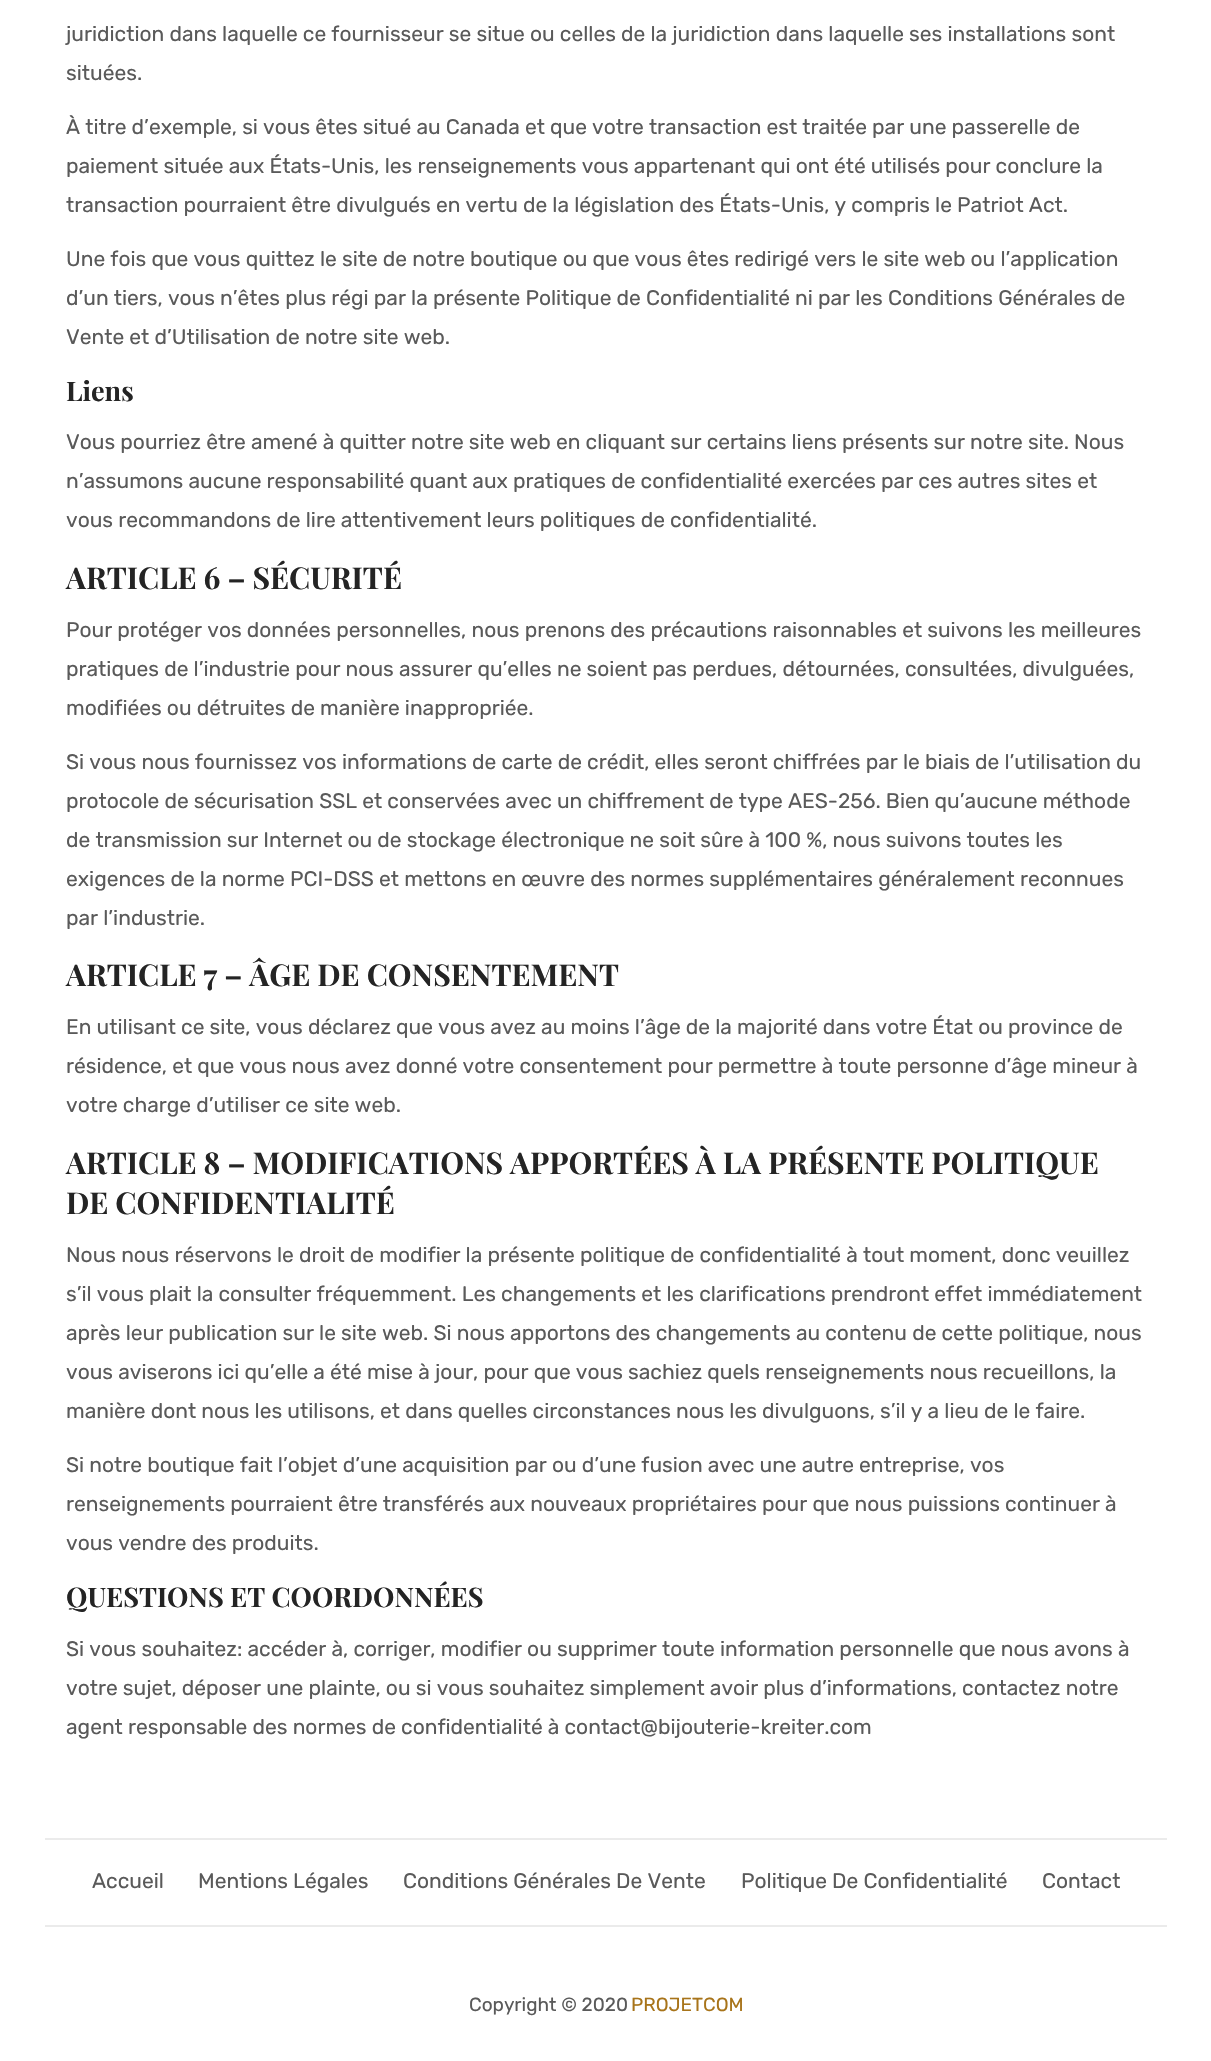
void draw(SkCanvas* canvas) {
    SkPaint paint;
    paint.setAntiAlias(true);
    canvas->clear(0xFFFFFFFF);
    SkFont font1(fontMgr->matchFamilyStyle("Rubik", SkFontStyle::Normal()), 21);
    font1.setSubpixel(true);
    paint.setColor(0xFF5A5A5A);
    canvas->drawString("juridiction dans laquelle ce fournisseur se situe ou celles de la juridiction dans laquelle ses installations sont", 66, 41, font1, paint);
    canvas->drawString("situées.", 66, 80, font1, paint);
    canvas->drawString("À titre d’exemple, si vous êtes situé au Canada et que votre transaction est traitée par une passerelle de", 66, 134, font1, paint);
    canvas->drawString("paiement située aux États-Unis, les renseignements vous appartenant qui ont été utilisés pour conclure la", 66, 173, font1, paint);
    canvas->drawString("transaction pourraient être divulgués en vertu de la législation des États-Unis, y compris le Patriot Act.", 66, 212, font1, paint);
    canvas->drawString("Une fois que vous quittez le site de notre boutique ou que vous êtes redirigé vers le site web ou l’application", 66, 266, font1, paint);
    canvas->drawString("d’un tiers, vous n’êtes plus régi par la présente Politique de Confidentialité ni par les Conditions Générales de", 66, 305, font1, paint);
    canvas->drawString("Vente et d’Utilisation de notre site web.", 66, 344, font1, paint);
    SkFont font2(fontMgr->matchFamilyStyle("Playfair Display", SkFontStyle::Bold()), 27);
    font2.setSubpixel(true);
    paint.setColor(0xFF242424);
    canvas->drawString("Liens", 66, 401, font2, paint);
    paint.setColor(0xFF5A5A5A);
    canvas->drawString("Vous pourriez être amené à quitter notre site web en cliquant sur certains liens présents sur notre site. Nous", 66, 449, font1, paint);
    canvas->drawString("n’assumons aucune responsabilité quant aux pratiques de confidentialité exercées par ces autres sites et", 66, 488, font1, paint);
    canvas->drawString("vous recommandons de lire attentivement leurs politiques de confidentialité.", 66, 527, font1, paint);
    SkFont font3(fontMgr->matchFamilyStyle("Playfair Display", SkFontStyle::Bold()), 30);
    font3.setSubpixel(true);
    paint.setColor(0xFF242424);
    canvas->drawString("ARTICLE 6 – SÉCURITÉ", 66, 589, font3, paint);
    paint.setColor(0xFF5A5A5A);
    canvas->drawString("Pour protéger vos données personnelles, nous prenons des précautions raisonnables et suivons les meilleures", 66, 637, font1, paint);
    canvas->drawString("pratiques de l’industrie pour nous assurer qu’elles ne soient pas perdues, détournées, consultées, divulguées,", 66, 676, font1, paint);
    canvas->drawString("modifiées ou détruites de manière inappropriée.", 66, 715, font1, paint);
    canvas->drawString("Si vous nous fournissez vos informations de carte de crédit, elles seront chiffrées par le biais de l’utilisation du", 66, 769, font1, paint);
    canvas->drawString("protocole de sécurisation SSL et conservées avec un chiffrement de type AES-256. Bien qu’aucune méthode", 66, 808, font1, paint);
    canvas->drawString("de transmission sur Internet ou de stockage électronique ne soit sûre à 100 %, nous suivons toutes les", 66, 847, font1, paint);
    canvas->drawString("exigences de la norme PCI-DSS et mettons en œuvre des normes supplémentaires généralement reconnues", 66, 886, font1, paint);
    canvas->drawString("par l’industrie.", 66, 925, font1, paint);
    paint.setColor(0xFF242424);
    canvas->drawString("ARTICLE 7 – ÂGE DE CONSENTEMENT", 66, 986, font3, paint);
    paint.setColor(0xFF5A5A5A);
    canvas->drawString("En utilisant ce site, vous déclarez que vous avez au moins l’âge de la majorité dans votre État ou province de", 66, 1034, font1, paint);
    canvas->drawString("résidence, et que vous nous avez donné votre consentement pour permettre à toute personne d’âge mineur à", 66, 1073, font1, paint);
    canvas->drawString("votre charge d’utiliser ce site web.", 66, 1112, font1, paint);
    paint.setColor(0xFF242424);
    canvas->drawString("ARTICLE 8 – MODIFICATIONS APPORTÉES À LA PRÉSENTE POLITIQUE", 66, 1174, font3, paint);
    canvas->drawString("DE CONFIDENTIALITÉ", 66, 1214, font3, paint);
    paint.setColor(0xFF5A5A5A);
    canvas->drawString("Nous nous réservons le droit de modifier la présente politique de confidentialité à tout moment, donc veuillez", 66, 1262, font1, paint);
    canvas->drawString("s’il vous plait la consulter fréquemment. Les changements et les clarifications prendront effet immédiatement", 66, 1301, font1, paint);
    canvas->drawString("après leur publication sur le site web. Si nous apportons des changements au contenu de cette politique, nous", 66, 1340, font1, paint);
    canvas->drawString("vous aviserons ici qu’elle a été mise à jour, pour que vous sachiez quels renseignements nous recueillons, la", 66, 1379, font1, paint);
    canvas->drawString("manière dont nous les utilisons, et dans quelles circonstances nous les divulguons, s’il y a lieu de le faire.", 66, 1418, font1, paint);
    canvas->drawString("Si notre boutique fait l’objet d’une acquisition par ou d’une fusion avec une autre entreprise, vos", 66, 1472, font1, paint);
    canvas->drawString("renseignements pourraient être transférés aux nouveaux propriétaires pour que nous puissions continuer à", 66, 1511, font1, paint);
    canvas->drawString("vous vendre des produits.", 66, 1550, font1, paint);
    paint.setColor(0xFF242424);
    canvas->drawString("QUESTIONS ET COORDONNÉES", 66, 1607, font2, paint);
    paint.setColor(0xFF5A5A5A);
    canvas->drawString("Si vous souhaitez: accéder à, corriger, modifier ou supprimer toute information personnelle que nous avons à", 66, 1656, font1, paint);
    canvas->drawString("votre sujet, déposer une plainte, ou si vous souhaitez simplement avoir plus d’informations, contactez notre", 66, 1695, font1, paint);
    canvas->drawString("agent responsable des normes de confidentialité à contact@bijouterie-kreiter.com", 66, 1734, font1, paint);
    paint.setColor(0xFFEBEBEB);
    canvas->drawRect(SkRect::MakeXYWH(45, 1838, 1122, 2), paint);
    canvas->drawRect(SkRect::MakeXYWH(45, 1925, 1122, 2), paint);
    paint.setColor(0xFF5A5A5A);
    canvas->drawString("Accueil", 92, 1888, font1, paint);
    canvas->drawString("Mentions Légales", 198, 1888, font1, paint);
    canvas->drawString("Conditions Générales De Vente", 403, 1888, font1, paint);
    canvas->drawString("Politique De Confidentialité", 741, 1888, font1, paint);
    canvas->drawString("Contact", 1042, 1888, font1, paint);
    SkFont font4(fontMgr->matchFamilyStyle("Rubik", SkFontStyle::Normal()), 19);
    font4.setSubpixel(true);
    canvas->drawString("Copyright © 2020", 469, 2011, font4, paint);
    paint.setColor(0xFFA8741A);
    canvas->drawString("PROJETCOM", 631, 2011, font4, paint);
}
